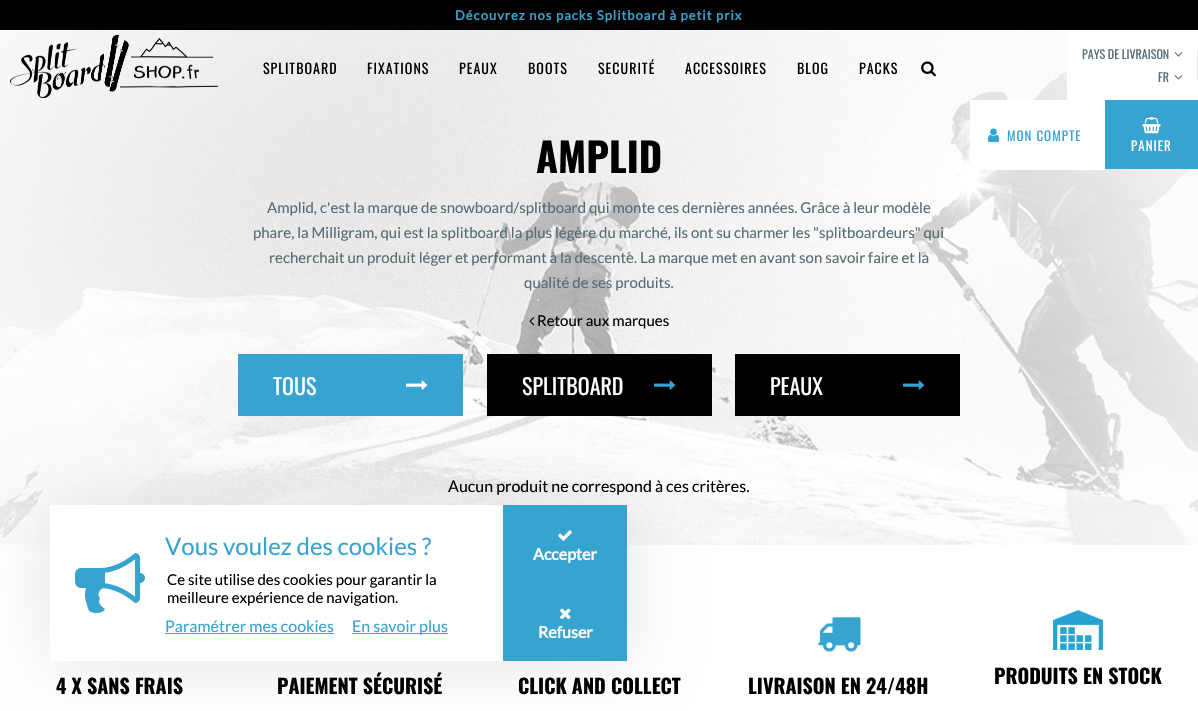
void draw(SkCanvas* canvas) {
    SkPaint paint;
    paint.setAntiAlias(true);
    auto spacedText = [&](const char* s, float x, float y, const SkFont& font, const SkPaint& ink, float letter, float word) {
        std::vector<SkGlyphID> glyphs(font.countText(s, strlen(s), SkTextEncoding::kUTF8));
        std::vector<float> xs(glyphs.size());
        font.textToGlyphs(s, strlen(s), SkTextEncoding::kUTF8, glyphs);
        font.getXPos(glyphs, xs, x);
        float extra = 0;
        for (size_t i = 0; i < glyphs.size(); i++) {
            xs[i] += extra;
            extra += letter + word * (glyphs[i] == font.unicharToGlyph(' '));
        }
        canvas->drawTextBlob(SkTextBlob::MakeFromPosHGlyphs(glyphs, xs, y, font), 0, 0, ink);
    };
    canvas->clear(0xFFFFFFFF);
    canvas->drawImageRect(SkImages::DeferredFromEncodedData(SkData::MakeFromFileName("img1.png")), SkRect::MakeXYWH(0, 30, 1198, 515), SkSamplingOptions());
    paint.setColor(0xFF000000);
    canvas->drawRect(SkRect::MakeXYWH(0, 0, 1198, 30), paint);
    SkFont font1(fontMgr->matchFamilyStyle("Lato", SkFontStyle::Bold()), 13);
    font1.setSubpixel(true);
    paint.setColor(0xFF37A3D0);
    spacedText("Découvrez nos packs Splitboard à petit prix", 455, 20, font1, paint, 1, 0);
    canvas->drawImageRect(SkImages::DeferredFromEncodedData(SkData::MakeFromFileName("img2.png")), SkRect::MakeXYWH(10, 35, 208, 63), SkSamplingOptions());
    SkFont font2(fontMgr->matchFamilyStyle("Oswald", SkFontStyle::Normal()), 14);
    font2.setSubpixel(true);
    paint.setColor(0xFF000000);
    spacedText("SPLITBOARD", 263, 74, font2, paint, 1, 0);
    spacedText("FIXATIONS", 367, 74, font2, paint, 1, 0);
    spacedText("PEAUX", 459, 74, font2, paint, 1, 0);
    spacedText("BOOTS", 528, 74, font2, paint, 1, 0);
    spacedText("SECURITÉ", 598, 74, font2, paint, 1, 0);
    spacedText("ACCESSOIRES", 685, 74, font2, paint, 1, 0);
    spacedText("BLOG", 797, 74, font2, paint, 1, 0);
    spacedText("PACKS", 859, 74, font2, paint, 1, 0);
    canvas->drawImageRect(SkImages::DeferredFromEncodedData(SkData::MakeFromFileName("img3.png")), SkRect::MakeXYWH(921, 61, 15, 16), SkSamplingOptions());
    paint.setColor(0xFFFFFFFF);
    canvas->drawRect(SkRect::MakeXYWH(1067, 30, 131, 70), paint);
    SkFont font3(fontMgr->matchFamilyStyle("Oswald", SkFontStyle::Normal()), 12);
    font3.setSubpixel(true);
    paint.setColor(0xFF556B75);
    canvas->drawString("PAYS DE LIVRAISON", 1082, 59, font3, paint);
    canvas->drawImageRect(SkImages::DeferredFromEncodedData(SkData::MakeFromFileName("img4.png")), SkRect::MakeXYWH(1174, 52, 9, 5), SkSamplingOptions());
    paint.setColor(0xFFECECEC);
    canvas->drawRect(SkRect::MakeXYWH(1197, 50, 1, 30), paint);
    paint.setColor(0xFF556B75);
    canvas->drawString("FR", 1158, 82, font3, paint);
    canvas->drawImageRect(SkImages::DeferredFromEncodedData(SkData::MakeFromFileName("img4.png")), SkRect::MakeXYWH(1174, 75, 9, 5), SkSamplingOptions());
    paint.setColor(0xFFFFFFFF);
    canvas->drawRect(SkRect::MakeXYWH(970, 100, 135, 70), paint);
    canvas->drawImageRect(SkImages::DeferredFromEncodedData(SkData::MakeFromFileName("img5.png")), SkRect::MakeXYWH(987, 128, 13, 15), SkSamplingOptions());
    SkFont font4(fontMgr->matchFamilyStyle("Oswald", SkFontStyle::Normal()), 13);
    font4.setSubpixel(true);
    paint.setColor(0xFF37A3D0);
    spacedText("MON COMPTE", 1007, 141, font4, paint, 1, 0);
    canvas->drawRect(SkRect::MakeXYWH(1105, 100, 93, 69), paint);
    canvas->drawImageRect(SkImages::DeferredFromEncodedData(SkData::MakeFromFileName("img6.png")), SkRect::MakeXYWH(1142, 117, 19, 17), SkSamplingOptions());
    paint.setColor(0xFFFFFFFF);
    spacedText("PANIER", 1131, 151, font4, paint, 1, 0);
    SkFont font5(fontMgr->matchFamilyStyle("Oswald", SkFontStyle::Bold()), 40);
    font5.setSubpixel(true);
    paint.setColor(0xFF000000);
    canvas->drawString("AMPLID", 536, 173, font5, paint);
    SkFont font6(fontMgr->matchFamilyStyle("Lato", SkFontStyle::Normal()), 15);
    font6.setSubpixel(true);
    paint.setColor(0xFF556B75);
    canvas->drawString("Amplid, c'est la marque de snowboard/splitboard qui monte ces dernières années. Grâce à leur modèle", 267, 213, font6, paint);
    canvas->drawString("phare, la Milligram, qui est la splitboard la plus légère du marché, ils ont su charmer les \"splitboardeurs\" qui", 253, 238, font6, paint);
    canvas->drawString("recherchait un produit léger et performant à la descente. La marque met en avant son savoir faire et la", 269, 263, font6, paint);
    canvas->drawString("qualité de ses produits.", 524, 288, font6, paint);
    canvas->drawImageRect(SkImages::DeferredFromEncodedData(SkData::MakeFromFileName("img7.png")), SkRect::MakeXYWH(529, 317, 6, 9), SkSamplingOptions());
    paint.setColor(0xFF000000);
    canvas->drawString("Retour aux marques", 537, 326, font6, paint);
    paint.setColor(0xFF37A3D0);
    canvas->drawRect(SkRect::MakeXYWH(238, 354, 225, 62), paint);
    SkFont font7(fontMgr->matchFamilyStyle("Oswald", SkFontStyle::Normal()), 22);
    font7.setSubpixel(true);
    paint.setColor(0xFFFFFFFF);
    canvas->drawString("TOUS", 273, 395, font7, paint);
    canvas->drawImageRect(SkImages::DeferredFromEncodedData(SkData::MakeFromFileName("img8.png")), SkRect::MakeXYWH(406, 380, 22, 10), SkSamplingOptions());
    paint.setColor(0xFF000000);
    canvas->drawRect(SkRect::MakeXYWH(487, 354, 225, 62), paint);
    paint.setColor(0xFFFFFFFF);
    canvas->drawString("SPLITBOARD", 522, 395, font7, paint);
    canvas->drawImageRect(SkImages::DeferredFromEncodedData(SkData::MakeFromFileName("img9.png")), SkRect::MakeXYWH(654, 380, 22, 10), SkSamplingOptions());
    paint.setColor(0xFF000000);
    canvas->drawRect(SkRect::MakeXYWH(735, 354, 225, 62), paint);
    paint.setColor(0xFFFFFFFF);
    canvas->drawString("PEAUX", 770, 395, font7, paint);
    canvas->drawImageRect(SkImages::DeferredFromEncodedData(SkData::MakeFromFileName("img9.png")), SkRect::MakeXYWH(903, 380, 22, 10), SkSamplingOptions());
    SkFont font8(fontMgr->matchFamilyStyle("Lato", SkFontStyle::Normal()), 16);
    font8.setSubpixel(true);
    paint.setColor(0xFF000000);
    canvas->drawString("Aucun produit ne correspond à ces critères.", 448, 492, font8, paint);
    paint.setColor(0x1A000000);
    paint.setMaskFilter(SkMaskFilter::MakeBlur(kNormal_SkBlurStyle, 35));
    canvas->drawRect(SkRect::MakeXYWH(50, 505, 577, 156), paint);
    paint.setMaskFilter(nullptr);
    paint.setColor(0xFFFFFFFF);
    canvas->drawRect(SkRect::MakeXYWH(50, 505, 453, 156), paint);
    SkFont font9(fontMgr->matchFamilyStyle("Lato", SkFontStyle::Normal()), 24);
    font9.setSubpixel(true);
    paint.setColor(0xFF37A3D0);
    canvas->drawString("Vous voulez des cookies ?", 165, 555, font9, paint);
    canvas->drawImageRect(SkImages::DeferredFromEncodedData(SkData::MakeFromFileName("img10.png")), SkRect::MakeXYWH(75, 553, 70, 60), SkSamplingOptions());
    paint.setColor(0xFF000000);
    canvas->drawString("Ce site utilise des cookies pour garantir la", 167, 585, font6, paint);
    canvas->drawString("meilleure expérience de navigation.", 167, 603, font6, paint);
    paint.setColor(0xFF37A3D0);
    canvas->drawString("Paramétrer mes cookies", 165, 632, font8, paint);
    canvas->drawRect(SkRect::MakeXYWH(165, 633, 169, 1), paint);
    canvas->drawRect(SkRect::MakeXYWH(352, 633, 96, 1), paint);
    canvas->drawString("En savoir plus", 352, 632, font8, paint);
    canvas->drawRect(SkRect::MakeXYWH(503, 505, 124, 156), paint);
    canvas->drawImageRect(SkImages::DeferredFromEncodedData(SkData::MakeFromFileName("img11.png")), SkRect::MakeXYWH(558, 530, 14, 11), SkSamplingOptions());
    SkFont font10(fontMgr->matchFamilyStyle("Lato", SkFontStyle::Bold()), 16);
    font10.setSubpixel(true);
    paint.setColor(0xFFFFFFFF);
    canvas->drawString("Accepter", 533, 560, font10, paint);
    canvas->drawImageRect(SkImages::DeferredFromEncodedData(SkData::MakeFromFileName("img12.png")), SkRect::MakeXYWH(560, 608, 11, 12), SkSamplingOptions());
    canvas->drawString("Refuser", 538, 638, font10, paint);
    SkFont font11(fontMgr->matchFamilyStyle("Oswald", SkFontStyle::Bold()), 20);
    font11.setSubpixel(true);
    paint.setColor(0xFF000000);
    canvas->drawString("4 X SANS FRAIS", 56, 694, font11, paint);
    canvas->drawString("PAIEMENT SÉCURISÉ", 277, 694, font11, paint);
    canvas->drawString("CLICK AND COLLECT", 518, 694, font11, paint);
    canvas->drawImageRect(SkImages::DeferredFromEncodedData(SkData::MakeFromFileName("img13.png")), SkRect::MakeXYWH(818, 617, 43, 35), SkSamplingOptions());
    canvas->drawString("LIVRAISON EN 24/48H", 748, 694, font11, paint);
    canvas->drawImageRect(SkImages::DeferredFromEncodedData(SkData::MakeFromFileName("img14.png")), SkRect::MakeXYWH(1053, 610, 50, 40), SkSamplingOptions());
    canvas->drawString("PRODUITS EN STOCK", 994, 684, font11, paint);
}
